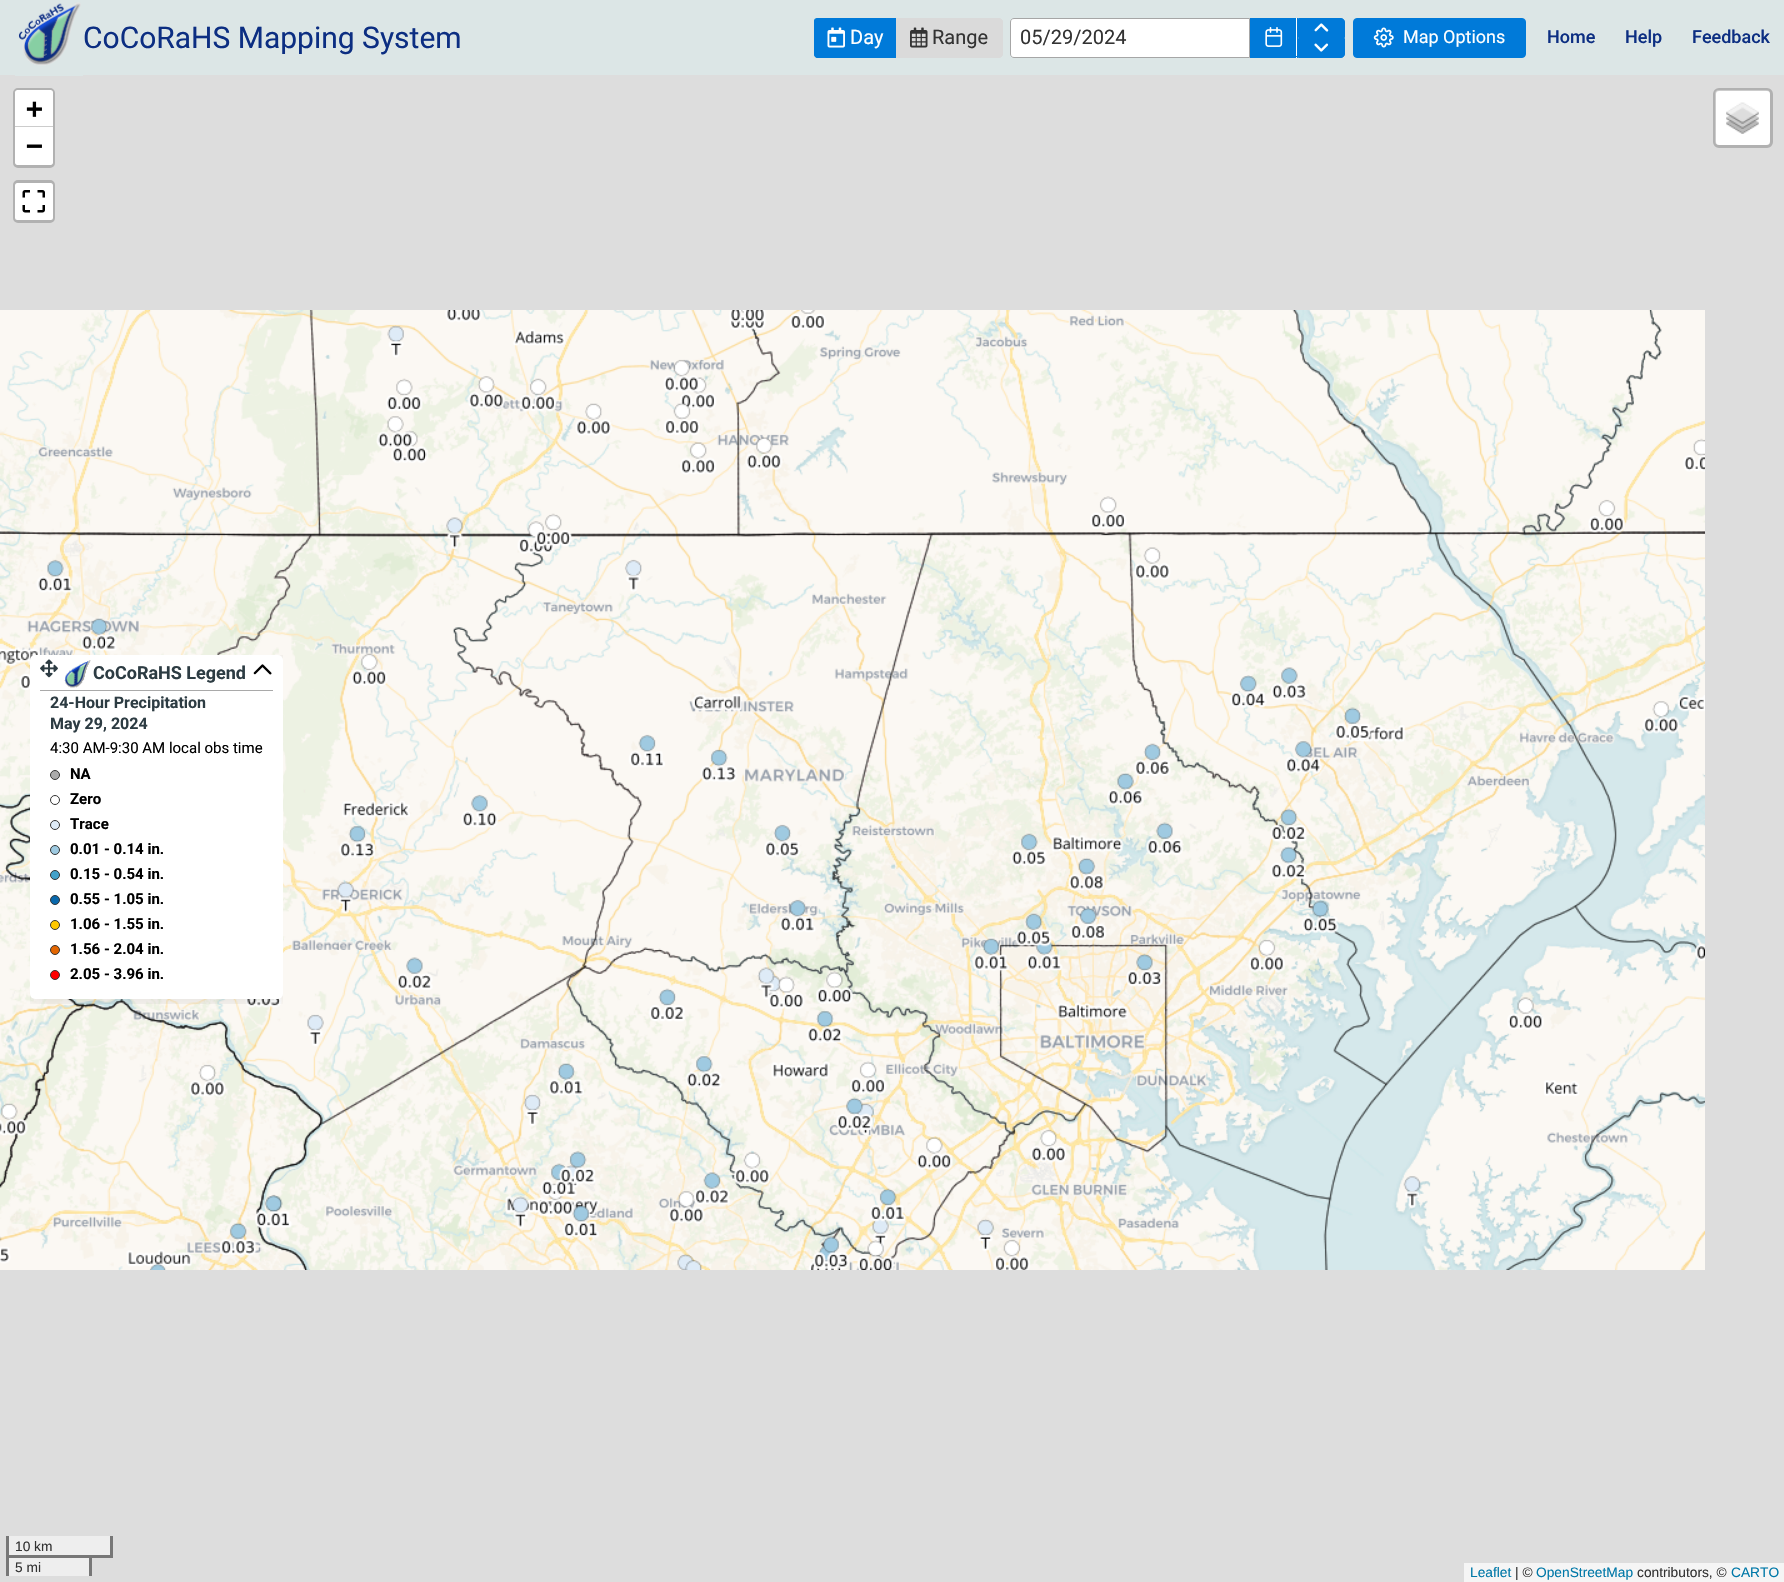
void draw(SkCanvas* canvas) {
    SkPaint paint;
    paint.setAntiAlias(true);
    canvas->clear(0xFFDCE6E6);
    paint.setColor(0xFFDDDDDD);
    canvas->drawRect(SkRect::MakeXYWH(0, 75, 1784, 1507), paint);
    paint.setColor(0xFFDCE6E6);
    canvas->drawRect(SkRect::MakeXYWH(15, 75, 68, 1), paint);
    canvas->drawImageRect(SkImages::DeferredFromEncodedData(SkData::MakeFromFileName("img1.png")), SkRect::MakeXYWH(18, 2, 63, 64), SkSamplingOptions());
    SkFont font1(fontMgr->matchFamilyStyle("Roboto", SkFontStyle::Normal()), 30);
    font1.setSubpixel(true);
    paint.setColor(0xFF0C2E82);
    canvas->drawString("CoCoRaHS Mapping System", 83, 48, font1, paint);
    paint.setColor(0xFF007AD9);
    canvas->drawPath(SkPathBuilder().moveTo(818, 18).lineTo(896, 18).lineTo(896, 58).lineTo(818, 58).cubicTo(816, 58, 814, 56, 814, 54).lineTo(814, 22).cubicTo(814, 20, 816, 18, 818, 18).close().detach(), paint);
    canvas->drawPath(SkPathBuilder(SkPathFillType::kEvenOdd).moveTo(818, 18).lineTo(896, 18).lineTo(896, 58).lineTo(818, 58).cubicTo(815, 58, 814, 56, 814, 54).lineTo(814, 21).cubicTo(814, 19, 815, 18, 818, 18).close().moveTo(818, 19).lineTo(896, 19).lineTo(896, 56).lineTo(818, 56).cubicTo(816, 56, 815, 55, 815, 54).lineTo(815, 21).cubicTo(815, 20, 816, 19, 818, 19).close().detach(), paint);
    canvas->drawImageRect(SkImages::DeferredFromEncodedData(SkData::MakeFromFileName("img2.png")), SkRect::MakeXYWH(827, 27, 18, 21), SkSamplingOptions());
    SkFont font2(fontMgr->matchFamilyStyle("Roboto", SkFontStyle::Normal()), 20);
    font2.setSubpixel(true);
    paint.setColor(0xFFFFFFFF);
    canvas->drawString("Day", 850, 44, font2, paint);
    paint.setColor(0xFFDADADA);
    canvas->drawPath(SkPathBuilder().moveTo(896.5f, 18.5f).lineTo(999, 18.5f).cubicTo(1001, 18.5f, 1002.5f, 20, 1002.5f, 22).lineTo(1002.5f, 54).cubicTo(1002.5f, 56, 1001, 57.5f, 999, 57.5f).lineTo(896.5f, 57.5f).close().detach(), paint);
    paint.setStyle(SkPaint::kStroke_Style);
    paint.setStrokeWidth(1);
    canvas->drawPath(SkPathBuilder().moveTo(896.5f, 18.5f).lineTo(999, 18.5f).cubicTo(1001, 18.5f, 1002.5f, 20, 1002.5f, 22).lineTo(1002.5f, 54).cubicTo(1002.5f, 56, 1001, 57.5f, 999, 57.5f).lineTo(896.5f, 57.5f).close().detach(), paint);
    canvas->drawImageRect(SkImages::DeferredFromEncodedData(SkData::MakeFromFileName("img3.png")), SkRect::MakeXYWH(910, 27, 18, 21), SkSamplingOptions());
    paint.setStyle(SkPaint::kFill_Style);
    paint.setColor(0xFF333333);
    canvas->drawString("Range", 932, 44, font2, paint);
    paint.setColor(0xFFFFFFFF);
    canvas->drawPath(SkPathBuilder().moveTo(1014, 18.5f).lineTo(1249.5f, 18.5f).lineTo(1249.5f, 57.5f).lineTo(1014, 57.5f).cubicTo(1012, 57.5f, 1010.5f, 56, 1010.5f, 54).lineTo(1010.5f, 22).cubicTo(1010.5f, 20, 1012, 18.5f, 1014, 18.5f).close().detach(), paint);
    paint.setStyle(SkPaint::kStroke_Style);
    paint.setColor(0xFFA6A6A6);
    canvas->drawPath(SkPathBuilder().moveTo(1014, 18.5f).lineTo(1249.5f, 18.5f).lineTo(1249.5f, 57.5f).lineTo(1014, 57.5f).cubicTo(1012, 57.5f, 1010.5f, 56, 1010.5f, 54).lineTo(1010.5f, 22).cubicTo(1010.5f, 20, 1012, 18.5f, 1014, 18.5f).close().detach(), paint);
    paint.setStyle(SkPaint::kFill_Style);
    paint.setColor(0xFF333333);
    canvas->drawString("05/29/2024", 1020, 44, font2, paint);
    paint.setColor(0xFF007AD9);
    canvas->drawRect(SkRect::MakeXYWH(1250, 18, 48, 40), paint);
    paint.setColor(0xFFFFFFFF);
    canvas->drawRect(SkRect::MakeXYWH(1296, 18, 1, 40), paint);
    paint.setColor(0xFF007AD9);
    canvas->drawRect(SkRect::MakeXYWH(1296, 56, 2, 1), paint);
    canvas->drawImageRect(SkImages::DeferredFromEncodedData(SkData::MakeFromFileName("img4.png")), SkRect::MakeXYWH(1265, 27, 18, 20), SkSamplingOptions());
    canvas->drawPath(SkPathBuilder().moveTo(1298.5f, 18.5f).lineTo(1341, 18.5f).cubicTo(1343, 18.5f, 1344.5f, 20, 1344.5f, 22).lineTo(1344.5f, 37.5f).lineTo(1298.5f, 37.5f).close().detach(), paint);
    paint.setStyle(SkPaint::kStroke_Style);
    canvas->drawPath(SkPathBuilder().moveTo(1298.5f, 18.5f).lineTo(1341, 18.5f).cubicTo(1343, 18.5f, 1344.5f, 20, 1344.5f, 22).lineTo(1344.5f, 37.5f).lineTo(1298.5f, 37.5f).close().detach(), paint);
    canvas->drawImageRect(SkImages::DeferredFromEncodedData(SkData::MakeFromFileName("img5.png")), SkRect::MakeXYWH(1314, 23, 15, 9), SkSamplingOptions());
    paint.setStyle(SkPaint::kFill_Style);
    canvas->drawPath(SkPathBuilder().moveTo(1298.5f, 38.5f).lineTo(1344.5f, 38.5f).lineTo(1344.5f, 54).cubicTo(1344.5f, 56, 1343, 57.5f, 1341, 57.5f).lineTo(1298.5f, 57.5f).close().detach(), paint);
    paint.setStyle(SkPaint::kStroke_Style);
    canvas->drawPath(SkPathBuilder().moveTo(1298.5f, 38.5f).lineTo(1344.5f, 38.5f).lineTo(1344.5f, 54).cubicTo(1344.5f, 56, 1343, 57.5f, 1341, 57.5f).lineTo(1298.5f, 57.5f).close().detach(), paint);
    canvas->drawImageRect(SkImages::DeferredFromEncodedData(SkData::MakeFromFileName("img6.png")), SkRect::MakeXYWH(1314, 43, 15, 9), SkSamplingOptions());
    paint.setStyle(SkPaint::kFill_Style);
    canvas->drawRoundRect(SkRect::MakeXYWH(1353.5f, 18.5f, 172, 39), 3.5f, 3.5f, paint);
    paint.setStyle(SkPaint::kStroke_Style);
    canvas->drawRoundRect(SkRect::MakeXYWH(1353.5f, 18.5f, 172, 39), 3.5f, 3.5f, paint);
    canvas->drawImageRect(SkImages::DeferredFromEncodedData(SkData::MakeFromFileName("img7.png")), SkRect::MakeXYWH(1373, 27, 21, 21), SkSamplingOptions());
    SkFont font3(fontMgr->matchFamilyStyle("Roboto", SkFontStyle::Normal()), 18);
    font3.setSubpixel(true);
    paint.setStyle(SkPaint::kFill_Style);
    paint.setColor(0xFFFFFFFF);
    canvas->drawString("Map Options", 1403, 43, font3, paint);
    SkFont font4(fontMgr->matchFamilyStyle("Roboto", SkFontStyle(500, SkFontStyle::kNormal_Width, SkFontStyle::kUpright_Slant)), 18);
    font4.setSubpixel(true);
    paint.setColor(0xFF0C2E82);
    canvas->drawString("Home", 1547, 43, font4, paint);
    canvas->drawString("Help", 1625, 43, font4, paint);
    canvas->drawString("Feedback", 1692, 43, font4, paint);
    paint.setColor(0xFFEEEEEE);
    canvas->drawRect(SkRect::MakeXYWH(9, 1558, 80, 18), paint);
    paint.setStyle(SkPaint::kStroke_Style);
    paint.setStrokeWidth(3);
    paint.setColor(0xFFB1B1B1);
    canvas->drawRoundRect(SkRect::MakeXYWH(14.5f, 89.5f, 39, 77), 3.5f, 3.5f, paint);
    paint.setStyle(SkPaint::kFill_Style);
    paint.setColor(0xFFFFFFFF);
    canvas->drawPath(SkPathBuilder().moveTo(17.5f, 90).lineTo(50.5f, 90).cubicTo(52, 90, 53, 91, 53, 92.5f).lineTo(53, 128).lineTo(15, 128).lineTo(15, 92.5f).cubicTo(15, 91, 16, 90, 17.5f, 90).close().detach(), paint);
    paint.setColor(0xFFCCCCCC);
    canvas->drawRect(SkRect::MakeXYWH(15, 126, 38, 1), paint);
    SkFont font5(fontMgr->matchFamilyStyle("DejaVu Sans Mono", SkFontStyle::Bold()), 28);
    font5.setSubpixel(true);
    paint.setColor(0xFF000000);
    canvas->drawString("+", 26, 118, font5, paint);
    paint.setColor(0xFFFFFFFF);
    canvas->drawPath(SkPathBuilder().moveTo(15, 128).lineTo(53, 128).lineTo(53, 162.5f).cubicTo(53, 164, 52, 165, 50.5f, 165).lineTo(17.5f, 165).cubicTo(16, 165, 15, 164, 15, 162.5f).close().detach(), paint);
    paint.setColor(0xFF000000);
    canvas->drawString("−", 26, 155, font5, paint);
    paint.setStyle(SkPaint::kStroke_Style);
    paint.setColor(0xFFB1B1B1);
    canvas->drawRoundRect(SkRect::MakeXYWH(14.5f, 181.5f, 39, 40), 3.5f, 3.5f, paint);
    paint.setStyle(SkPaint::kFill_Style);
    paint.setColor(0xFFFFFFFF);
    canvas->drawRoundRect(SkRect::MakeXYWH(15, 183, 38, 37), 2.5f, 2.5f, paint);
    canvas->drawImageRect(SkImages::DeferredFromEncodedData(SkData::MakeFromFileName("img8.png")), SkRect::MakeXYWH(22, 190, 23, 23), SkSamplingOptions());
    canvas->drawRoundRect(SkRect::MakeXYWH(1715, 90, 55, 55), 4, 4, paint);
    paint.setStyle(SkPaint::kStroke_Style);
    paint.setColor(0x33000000);
    canvas->drawRoundRect(SkRect::MakeXYWH(1714.5f, 89.5f, 57, 57), 4.5f, 4.5f, paint);
    canvas->drawImageRect(SkImages::DeferredFromEncodedData(SkData::MakeFromFileName("img9.png")), SkRect::MakeXYWH(1726, 102, 33, 32), SkSamplingOptions());
    paint.setStyle(SkPaint::kFill_Style);
    paint.setColor(0xFFEEEEEE);
    canvas->drawRect(SkRect::MakeXYWH(9, 1536, 101, 19), paint);
    paint.setColor(0xFF777777);
    canvas->drawRect(SkRect::MakeXYWH(110, 1536, 3, 22), paint);
    canvas->drawRect(SkRect::MakeXYWH(92, 1555, 21, 3), paint);
    canvas->drawRect(SkRect::MakeXYWH(6, 1536, 3, 22), paint);
    SkFont font6(fontMgr->matchFamilyStyle("Liberation Sans", SkFontStyle::Normal()), 13.75f);
    font6.setSubpixel(true);
    paint.setColor(0xFF333333);
    canvas->drawString("10 km", 15, 1551, font6, paint);
    paint.setColor(0xFF777777);
    canvas->drawRect(SkRect::MakeXYWH(6, 1555, 85, 3), paint);
    canvas->drawRect(SkRect::MakeXYWH(89, 1555, 3, 21), paint);
    canvas->drawRect(SkRect::MakeXYWH(6, 1555, 3, 21), paint);
    paint.setColor(0xFF333333);
    canvas->drawString("5 mi", 15, 1572, font6, paint);
    paint.setColor(0xFFF5F5F5);
    canvas->drawRect(SkRect::MakeXYWH(1464, 1563, 320, 19), paint);
    paint.setColor(0xFF0078A8);
    canvas->drawString("Leaflet", 1470, 1577, font6, paint);
    paint.setColor(0xFF333333);
    canvas->drawString("| ©", 1515, 1577, font6, paint);
    paint.setColor(0xFF0078A8);
    canvas->drawString("OpenStreetMap", 1536, 1577, font6, paint);
    paint.setColor(0xFF333333);
    canvas->drawString("contributors, ©", 1637, 1577, font6, paint);
    paint.setColor(0xFF0078A8);
    canvas->drawString("CARTO", 1731, 1577, font6, paint);
    canvas->drawImageRect(SkImages::DeferredFromEncodedData(SkData::MakeFromFileName("img10.png")), SkRect::MakeXYWH(0, 310, 105, 320), SkSamplingOptions());
    canvas->drawImageRect(SkImages::DeferredFromEncodedData(SkData::MakeFromFileName("img11.png")), SkRect::MakeXYWH(105, 310, 320, 320), SkSamplingOptions());
    canvas->drawImageRect(SkImages::DeferredFromEncodedData(SkData::MakeFromFileName("img12.png")), SkRect::MakeXYWH(425, 310, 320, 320), SkSamplingOptions());
    canvas->drawImageRect(SkImages::DeferredFromEncodedData(SkData::MakeFromFileName("img13.png")), SkRect::MakeXYWH(745, 310, 320, 320), SkSamplingOptions());
    canvas->drawImageRect(SkImages::DeferredFromEncodedData(SkData::MakeFromFileName("img14.png")), SkRect::MakeXYWH(1065, 310, 320, 320), SkSamplingOptions());
    canvas->drawImageRect(SkImages::DeferredFromEncodedData(SkData::MakeFromFileName("img15.png")), SkRect::MakeXYWH(1385, 310, 320, 320), SkSamplingOptions());
    canvas->drawImageRect(SkImages::DeferredFromEncodedData(SkData::MakeFromFileName("img16.png")), SkRect::MakeXYWH(0, 630, 105, 320), SkSamplingOptions());
    canvas->drawImageRect(SkImages::DeferredFromEncodedData(SkData::MakeFromFileName("img17.png")), SkRect::MakeXYWH(105, 630, 320, 320), SkSamplingOptions());
    canvas->drawImageRect(SkImages::DeferredFromEncodedData(SkData::MakeFromFileName("img18.png")), SkRect::MakeXYWH(425, 630, 320, 320), SkSamplingOptions());
    canvas->drawImageRect(SkImages::DeferredFromEncodedData(SkData::MakeFromFileName("img19.png")), SkRect::MakeXYWH(745, 630, 320, 320), SkSamplingOptions());
    canvas->drawImageRect(SkImages::DeferredFromEncodedData(SkData::MakeFromFileName("img20.png")), SkRect::MakeXYWH(1065, 630, 320, 320), SkSamplingOptions());
    canvas->drawImageRect(SkImages::DeferredFromEncodedData(SkData::MakeFromFileName("img21.png")), SkRect::MakeXYWH(1385, 630, 320, 320), SkSamplingOptions());
    canvas->drawImageRect(SkImages::DeferredFromEncodedData(SkData::MakeFromFileName("img22.png")), SkRect::MakeXYWH(0, 950, 105, 320), SkSamplingOptions());
    canvas->drawImageRect(SkImages::DeferredFromEncodedData(SkData::MakeFromFileName("img23.png")), SkRect::MakeXYWH(105, 950, 320, 320), SkSamplingOptions());
    canvas->drawImageRect(SkImages::DeferredFromEncodedData(SkData::MakeFromFileName("img24.png")), SkRect::MakeXYWH(425, 950, 320, 320), SkSamplingOptions());
    canvas->drawImageRect(SkImages::DeferredFromEncodedData(SkData::MakeFromFileName("img25.png")), SkRect::MakeXYWH(745, 950, 320, 320), SkSamplingOptions());
    canvas->drawImageRect(SkImages::DeferredFromEncodedData(SkData::MakeFromFileName("img26.png")), SkRect::MakeXYWH(1065, 950, 320, 320), SkSamplingOptions());
    canvas->drawImageRect(SkImages::DeferredFromEncodedData(SkData::MakeFromFileName("img27.png")), SkRect::MakeXYWH(1385, 950, 320, 320), SkSamplingOptions());
    canvas->drawImageRect(SkImages::DeferredFromEncodedData(SkData::MakeFromFileName("img28.png")), SkRect::MakeXYWH(0, 531, 105, 99), SkSamplingOptions());
    canvas->drawImageRect(SkImages::DeferredFromEncodedData(SkData::MakeFromFileName("img29.png")), SkRect::MakeXYWH(105, 310, 320, 320), SkSamplingOptions());
    canvas->drawImageRect(SkImages::DeferredFromEncodedData(SkData::MakeFromFileName("img30.png")), SkRect::MakeXYWH(425, 310, 320, 320), SkSamplingOptions());
    canvas->drawImageRect(SkImages::DeferredFromEncodedData(SkData::MakeFromFileName("img31.png")), SkRect::MakeXYWH(745, 310, 320, 320), SkSamplingOptions());
    canvas->drawImageRect(SkImages::DeferredFromEncodedData(SkData::MakeFromFileName("img32.png")), SkRect::MakeXYWH(1065, 310, 320, 320), SkSamplingOptions());
    canvas->drawImageRect(SkImages::DeferredFromEncodedData(SkData::MakeFromFileName("img33.png")), SkRect::MakeXYWH(1385, 310, 320, 320), SkSamplingOptions());
    canvas->drawImageRect(SkImages::DeferredFromEncodedData(SkData::MakeFromFileName("img34.png")), SkRect::MakeXYWH(0, 630, 105, 251), SkSamplingOptions());
    canvas->drawImageRect(SkImages::DeferredFromEncodedData(SkData::MakeFromFileName("img35.png")), SkRect::MakeXYWH(105, 630, 305, 284), SkSamplingOptions());
    canvas->drawImageRect(SkImages::DeferredFromEncodedData(SkData::MakeFromFileName("img36.png")), SkRect::MakeXYWH(453, 630, 290, 320), SkSamplingOptions());
    canvas->drawImageRect(SkImages::DeferredFromEncodedData(SkData::MakeFromFileName("img37.png")), SkRect::MakeXYWH(764, 630, 301, 320), SkSamplingOptions());
    canvas->drawImageRect(SkImages::DeferredFromEncodedData(SkData::MakeFromFileName("img38.png")), SkRect::MakeXYWH(1065, 630, 320, 320), SkSamplingOptions());
    canvas->drawImageRect(SkImages::DeferredFromEncodedData(SkData::MakeFromFileName("img39.png")), SkRect::MakeXYWH(1385, 630, 320, 320), SkSamplingOptions());
    canvas->drawImageRect(SkImages::DeferredFromEncodedData(SkData::MakeFromFileName("img40.png")), SkRect::MakeXYWH(0, 999, 105, 265), SkSamplingOptions());
    canvas->drawImageRect(SkImages::DeferredFromEncodedData(SkData::MakeFromFileName("img41.png")), SkRect::MakeXYWH(105, 957, 320, 313), SkSamplingOptions());
    canvas->drawImageRect(SkImages::DeferredFromEncodedData(SkData::MakeFromFileName("img42.png")), SkRect::MakeXYWH(425, 950, 320, 320), SkSamplingOptions());
    canvas->drawImageRect(SkImages::DeferredFromEncodedData(SkData::MakeFromFileName("img43.png")), SkRect::MakeXYWH(745, 950, 320, 320), SkSamplingOptions());
    canvas->drawImageRect(SkImages::DeferredFromEncodedData(SkData::MakeFromFileName("img44.png")), SkRect::MakeXYWH(1065, 950, 320, 320), SkSamplingOptions());
    canvas->drawImageRect(SkImages::DeferredFromEncodedData(SkData::MakeFromFileName("img45.png")), SkRect::MakeXYWH(1385, 950, 320, 320), SkSamplingOptions());
    canvas->save();
    canvas->clipRect(SkRect::MakeXYWH(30, 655, 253, 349));
    paint.setColor(0x1F000000);
    paint.setMaskFilter(SkMaskFilter::MakeBlur(kNormal_SkBlurStyle, 10));
    canvas->drawRoundRect(SkRect::MakeXYWH(30, 655, 253, 344), 5, 5, paint);
    paint.setMaskFilter(nullptr);
    canvas->restore();
    paint.setColor(0xFFFFFFFF);
    canvas->drawRoundRect(SkRect::MakeXYWH(30, 655, 253, 344), 5, 5, paint);
    paint.setColor(0xFFA9A9A9);
    canvas->drawRect(SkRect::MakeXYWH(40, 690, 233, 1), paint);
    canvas->drawImageRect(SkImages::DeferredFromEncodedData(SkData::MakeFromFileName("img46.png")), SkRect::MakeXYWH(40, 659, 18, 19), SkSamplingOptions());
    canvas->drawImageRect(SkImages::DeferredFromEncodedData(SkData::MakeFromFileName("img47.png")), SkRect::MakeXYWH(64, 660, 27, 28), SkSamplingOptions());
    SkFont font7(fontMgr->matchFamilyStyle("Roboto", SkFontStyle::Bold()), 18);
    font7.setSubpixel(true);
    paint.setColor(0xFF2D3C43);
    canvas->drawString("CoCoRaHS Legend", 93, 679, font7, paint);
    canvas->drawImageRect(SkImages::DeferredFromEncodedData(SkData::MakeFromFileName("img48.png")), SkRect::MakeXYWH(253, 664, 19, 11), SkSamplingOptions());
    SkFont font8(fontMgr->matchFamilyStyle("Roboto", SkFontStyle::Bold()), 16);
    font8.setSubpixel(true);
    canvas->drawString("24-Hour Precipitation", 50, 708, font8, paint);
    canvas->drawString("May 29, 2024", 50, 729, font8, paint);
    SkFont font9(fontMgr->matchFamilyStyle("Roboto", SkFontStyle::Normal()), 15);
    font9.setSubpixel(true);
    paint.setColor(0xFF000000);
    canvas->drawString("4:30 AM-9:30 AM local obs time", 50, 753, font9, paint);
    paint.setColor(0xFFABABAB);
    canvas->drawCircle(55, 775, 4.5f, paint);
    paint.setStyle(SkPaint::kStroke_Style);
    paint.setStrokeWidth(1);
    paint.setColor(0xFF333333);
    canvas->drawCircle(55, 775, 4.5f, paint);
    SkFont font10(fontMgr->matchFamilyStyle("Roboto", SkFontStyle::Bold()), 15);
    font10.setSubpixel(true);
    paint.setStyle(SkPaint::kFill_Style);
    paint.setColor(0xFF000000);
    canvas->drawString("NA", 70, 779, font10, paint);
    paint.setStyle(SkPaint::kStroke_Style);
    paint.setColor(0xFF333333);
    canvas->drawCircle(55, 800, 4.5f, paint);
    paint.setStyle(SkPaint::kFill_Style);
    paint.setColor(0xFF000000);
    canvas->drawString("Zero", 70, 804, font10, paint);
    paint.setColor(0xFFDEEBF7);
    canvas->drawCircle(55, 825, 4.5f, paint);
    paint.setStyle(SkPaint::kStroke_Style);
    paint.setColor(0xFF333333);
    canvas->drawCircle(55, 825, 4.5f, paint);
    paint.setStyle(SkPaint::kFill_Style);
    paint.setColor(0xFF000000);
    canvas->drawString("Trace", 70, 829, font10, paint);
    paint.setColor(0xFF9ECAE1);
    canvas->drawCircle(55, 850, 4.5f, paint);
    paint.setStyle(SkPaint::kStroke_Style);
    paint.setColor(0xFF333333);
    canvas->drawCircle(55, 850, 4.5f, paint);
    paint.setStyle(SkPaint::kFill_Style);
    paint.setColor(0xFF000000);
    canvas->drawString("0.01 - 0.14 in.", 70, 854, font10, paint);
    paint.setColor(0xFF43A2CA);
    canvas->drawCircle(55, 875, 4.5f, paint);
    paint.setStyle(SkPaint::kStroke_Style);
    paint.setColor(0xFF333333);
    canvas->drawCircle(55, 875, 4.5f, paint);
    paint.setStyle(SkPaint::kFill_Style);
    paint.setColor(0xFF000000);
    canvas->drawString("0.15 - 0.54 in.", 70, 879, font10, paint);
    paint.setColor(0xFF0868AC);
    canvas->drawCircle(55, 900, 4.5f, paint);
    paint.setStyle(SkPaint::kStroke_Style);
    paint.setColor(0xFF333333);
    canvas->drawCircle(55, 900, 4.5f, paint);
    paint.setStyle(SkPaint::kFill_Style);
    paint.setColor(0xFF000000);
    canvas->drawString("0.55 - 1.05 in.", 70, 904, font10, paint);
    paint.setColor(0xFFFFC800);
    canvas->drawCircle(55, 925, 4.5f, paint);
    paint.setStyle(SkPaint::kStroke_Style);
    paint.setColor(0xFF333333);
    canvas->drawCircle(55, 925, 4.5f, paint);
    paint.setStyle(SkPaint::kFill_Style);
    paint.setColor(0xFF000000);
    canvas->drawString("1.06 - 1.55 in.", 70, 929, font10, paint);
    paint.setColor(0xFFE36600);
    canvas->drawCircle(55, 950, 4.5f, paint);
    paint.setStyle(SkPaint::kStroke_Style);
    paint.setColor(0xFF333333);
    canvas->drawCircle(55, 950, 4.5f, paint);
    paint.setStyle(SkPaint::kFill_Style);
    paint.setColor(0xFF000000);
    canvas->drawString("1.56 - 2.04 in.", 70, 954, font10, paint);
    paint.setColor(0xFFFF0000);
    canvas->drawCircle(55, 975, 4.5f, paint);
    paint.setStyle(SkPaint::kStroke_Style);
    paint.setColor(0xFF333333);
    canvas->drawCircle(55, 975, 4.5f, paint);
    paint.setStyle(SkPaint::kFill_Style);
    paint.setColor(0xFF000000);
    canvas->drawString("2.05 - 3.96 in.", 70, 979, font10, paint);
}
